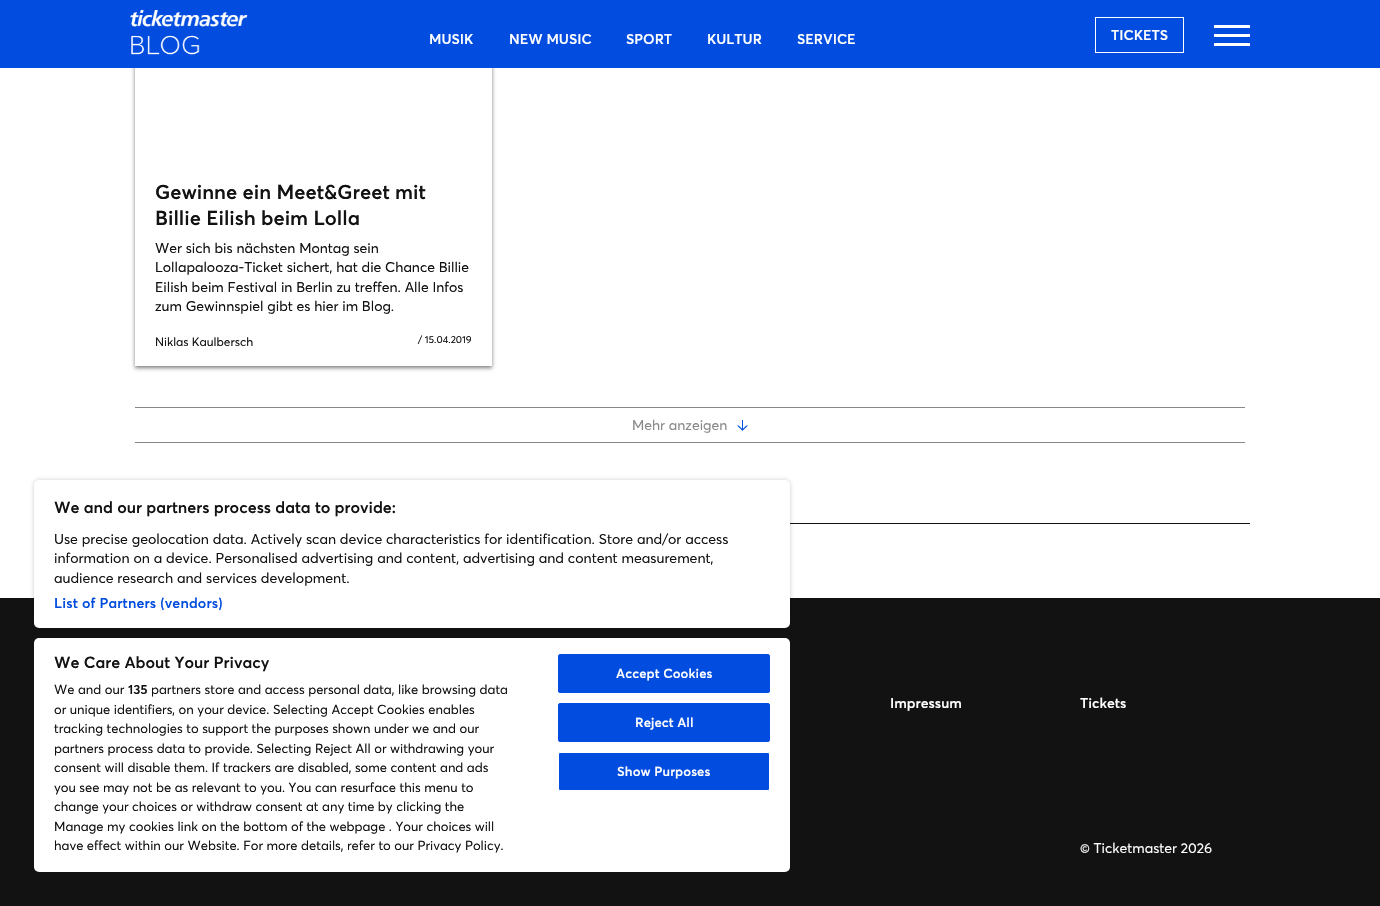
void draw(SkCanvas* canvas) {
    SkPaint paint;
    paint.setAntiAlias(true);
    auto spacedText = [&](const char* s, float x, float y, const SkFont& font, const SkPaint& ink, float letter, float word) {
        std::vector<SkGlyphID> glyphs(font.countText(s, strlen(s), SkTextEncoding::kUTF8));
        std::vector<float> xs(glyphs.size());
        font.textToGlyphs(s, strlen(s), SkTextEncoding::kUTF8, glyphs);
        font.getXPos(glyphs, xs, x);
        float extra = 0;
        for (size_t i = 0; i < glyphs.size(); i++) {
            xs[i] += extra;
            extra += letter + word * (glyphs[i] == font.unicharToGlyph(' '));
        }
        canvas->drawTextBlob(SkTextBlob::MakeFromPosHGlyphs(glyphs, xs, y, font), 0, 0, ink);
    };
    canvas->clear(0xFFFFFFFF);
    canvas->save();
    canvas->clipPath(SkPathBuilder(SkPathFillType::kEvenOdd).moveTo(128, 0).lineTo(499, 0).lineTo(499, 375).lineTo(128, 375).close().moveTo(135, -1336).lineTo(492, -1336).lineTo(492, 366).lineTo(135, 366).close().detach(), true);
    paint.setColor(0x80000000);
    paint.setMaskFilter(SkMaskFilter::MakeBlur(kNormal_SkBlurStyle, 2));
    canvas->drawRect(SkRect::MakeXYWH(135, -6, 357, 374), paint);
    paint.setMaskFilter(nullptr);
    canvas->restore();
    paint.setColor(0xFF024DDF);
    canvas->drawRect(SkRect::MakeXYWH(0, 0, 1380, 68), paint);
    canvas->drawImageRect(SkImages::DeferredFromEncodedData(SkData::MakeFromFileName("img1.png")), SkRect::MakeXYWH(130, 10, 118, 45), SkSamplingOptions());
    SkFont font1(fontMgr->matchFamilyStyle("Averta", SkFontStyle(600, SkFontStyle::kNormal_Width, SkFontStyle::kUpright_Slant)), 14);
    font1.setSubpixel(true);
    paint.setColor(0xFFFFFFFF);
    canvas->drawString("MUSIK", 429, 44, font1, paint);
    canvas->drawString("NEW MUSIC", 509, 44, font1, paint);
    canvas->drawString("SPORT", 626, 44, font1, paint);
    canvas->drawString("KULTUR", 707, 44, font1, paint);
    canvas->drawString("SERVICE", 797, 44, font1, paint);
    paint.setStyle(SkPaint::kStroke_Style);
    paint.setStrokeWidth(1);
    canvas->drawRect(SkRect::MakeXYWH(1095.5f, 17.5f, 88, 35), paint);
    paint.setStyle(SkPaint::kFill_Style);
    canvas->drawString("TICKETS", 1111, 40, font1, paint);
    canvas->drawRect(SkRect::MakeXYWH(1214, 43, 36, 3), paint);
    canvas->drawRect(SkRect::MakeXYWH(1214, 25, 36, 3), paint);
    canvas->drawRect(SkRect::MakeXYWH(1214, 34, 36, 3), paint);
    SkFont font2(fontMgr->matchFamilyStyle("Averta", SkFontStyle(600, SkFontStyle::kNormal_Width, SkFontStyle::kUpright_Slant)), 20);
    font2.setSubpixel(true);
    paint.setColor(0xFF121212);
    canvas->drawString("Gewinne ein Meet&Greet mit", 155, 199, font2, paint);
    canvas->drawString("Billie Eilish beim Lolla", 155, 225, font2, paint);
    SkFont font3(fontMgr->matchFamilyStyle("Averta", SkFontStyle::Normal()), 14);
    font3.setSubpixel(true);
    canvas->drawString("Wer sich bis nächsten Montag sein", 155, 253, font3, paint);
    canvas->drawString("Lollapalooza-Ticket sichert, hat die Chance Billie", 155, 272, font3, paint);
    canvas->drawString("Eilish beim Festival in Berlin zu treffen. Alle Infos", 155, 292, font3, paint);
    canvas->drawString("zum Gewinnspiel gibt es hier im Blog.", 155, 311, font3, paint);
    SkFont font4(fontMgr->matchFamilyStyle("Averta", SkFontStyle::Normal()), 12);
    font4.setSubpixel(true);
    canvas->drawString("Niklas Kaulbersch", 155, 346, font4, paint);
    SkFont font5(fontMgr->matchFamilyStyle("Averta", SkFontStyle::Normal()), 10);
    font5.setSubpixel(true);
    canvas->drawString("/ 15.04.2019", 418, 343, font5, paint);
    paint.setColor(0xFF888888);
    canvas->drawRect(SkRect::MakeXYWH(135, 407, 1110, 1), paint);
    canvas->drawRect(SkRect::MakeXYWH(135, 442, 1110, 1), paint);
    canvas->drawString("Mehr anzeigen", 632, 430, font3, paint);
    canvas->drawImageRect(SkImages::DeferredFromEncodedData(SkData::MakeFromFileName("img2.png")), SkRect::MakeXYWH(737, 420, 11, 11), SkSamplingOptions());
    paint.setColor(0xFF121212);
    canvas->drawRect(SkRect::MakeXYWH(790, 523, 460, 1), paint);
    canvas->drawRect(SkRect::MakeXYWH(0, 598, 1380, 308), paint);
    paint.setColor(0x33000000);
    paint.setMaskFilter(SkMaskFilter::MakeBlur(kNormal_SkBlurStyle, 2));
    canvas->drawRoundRect(SkRect::MakeXYWH(34, 480, 756, 148), 5, 5, paint);
    paint.setMaskFilter(nullptr);
    paint.setColor(0xFFFFFFFF);
    canvas->drawRoundRect(SkRect::MakeXYWH(34, 480, 756, 148), 5, 5, paint);
    SkFont font6(fontMgr->matchFamilyStyle("Averta", SkFontStyle(600, SkFontStyle::kNormal_Width, SkFontStyle::kUpright_Slant)), 16);
    font6.setSubpixel(true);
    paint.setColor(0xFF121212);
    canvas->drawString("We and our partners process data to provide:", 54, 513, font6, paint);
    SkFont font7(fontMgr->matchFamilyStyle("Averta", SkFontStyle::Normal()), 14.1f);
    font7.setSubpixel(true);
    canvas->drawString("Use precise geolocation data. Actively scan device characteristics for identification. Store and/or access", 54, 544, font7, paint);
    canvas->drawString("information on a device. Personalised advertising and content, advertising and content measurement,", 54, 563, font7, paint);
    canvas->drawString("audience research and services development.", 54, 583, font7, paint);
    SkFont font8(fontMgr->matchFamilyStyle("Averta", SkFontStyle(600, SkFontStyle::kNormal_Width, SkFontStyle::kUpright_Slant)), 14.1f);
    font8.setSubpixel(true);
    paint.setColor(0xFF024DDF);
    spacedText("List of Partners (vendors)", 54, 608, font8, paint, 0.15f, 0);
    paint.setColor(0xFFFFFFFF);
    canvas->drawRoundRect(SkRect::MakeXYWH(34, 638, 756, 234), 5, 5, paint);
    paint.setColor(0xFF121212);
    canvas->drawString("We Care About Your Privacy", 54, 668, font6, paint);
    SkFont font9(fontMgr->matchFamilyStyle("Averta", SkFontStyle::Normal()), 13);
    font9.setSubpixel(true);
    canvas->drawString("We and our", 54, 694, font9, paint);
    SkFont font10(fontMgr->matchFamilyStyle("Averta", SkFontStyle(600, SkFontStyle::kNormal_Width, SkFontStyle::kUpright_Slant)), 13);
    font10.setSubpixel(true);
    canvas->drawString("135", 128, 694, font10, paint);
    canvas->drawString("partners store and access personal data, like browsing data", 151, 694, font9, paint);
    canvas->drawString("or unique identifiers, on your device. Selecting Accept Cookies enables", 54, 714, font9, paint);
    canvas->drawString("tracking technologies to support the purposes shown under we and our", 54, 733, font9, paint);
    canvas->drawString("partners process data to provide. Selecting Reject All or withdrawing your", 54, 753, font9, paint);
    canvas->drawString("consent will disable them. If trackers are disabled, some content and ads", 54, 772, font9, paint);
    canvas->drawString("you see may not be as relevant to you. You can resurface this menu to", 54, 792, font9, paint);
    canvas->drawString("change your choices or withdraw consent at any time by clicking the", 54, 811, font9, paint);
    canvas->drawString("Manage my cookies link on the bottom of the webpage . Your choices will", 54, 831, font9, paint);
    canvas->drawString("have effect within our Website. For more details, refer to our Privacy Policy.", 54, 850, font9, paint);
    paint.setColor(0xFF024DDF);
    canvas->drawRoundRect(SkRect::MakeXYWH(558.5f, 654.5f, 211, 38), 1.5f, 1.5f, paint);
    paint.setStyle(SkPaint::kStroke_Style);
    canvas->drawRoundRect(SkRect::MakeXYWH(558.5f, 654.5f, 211, 38), 1.5f, 1.5f, paint);
    paint.setStyle(SkPaint::kFill_Style);
    paint.setColor(0xFFFFFFFF);
    spacedText("Accept Cookies", 616, 678, font10, paint, 0.1f, 0);
    paint.setColor(0xFF024DDF);
    canvas->drawRoundRect(SkRect::MakeXYWH(558.5f, 703.5f, 211, 38), 1.5f, 1.5f, paint);
    paint.setStyle(SkPaint::kStroke_Style);
    canvas->drawRoundRect(SkRect::MakeXYWH(558.5f, 703.5f, 211, 38), 1.5f, 1.5f, paint);
    paint.setStyle(SkPaint::kFill_Style);
    paint.setColor(0xFFFFFFFF);
    spacedText("Reject All", 635, 727, font10, paint, 0.1f, 0);
    paint.setColor(0xFF024DDF);
    canvas->drawRoundRect(SkRect::MakeXYWH(558.5f, 752.5f, 211, 38), 1.5f, 1.5f, paint);
    paint.setStyle(SkPaint::kStroke_Style);
    paint.setColor(0xFFFFFFFF);
    canvas->drawRoundRect(SkRect::MakeXYWH(558.5f, 752.5f, 211, 38), 1.5f, 1.5f, paint);
    paint.setStyle(SkPaint::kFill_Style);
    spacedText("Show Purposes", 617, 776, font10, paint, 0.1f, 0);
    canvas->drawString("Impressum", 890, 708, font1, paint);
    canvas->drawString("Tickets", 1080, 708, font1, paint);
    canvas->drawString("© Ticketmaster 2026", 1080, 853, font3, paint);
}
